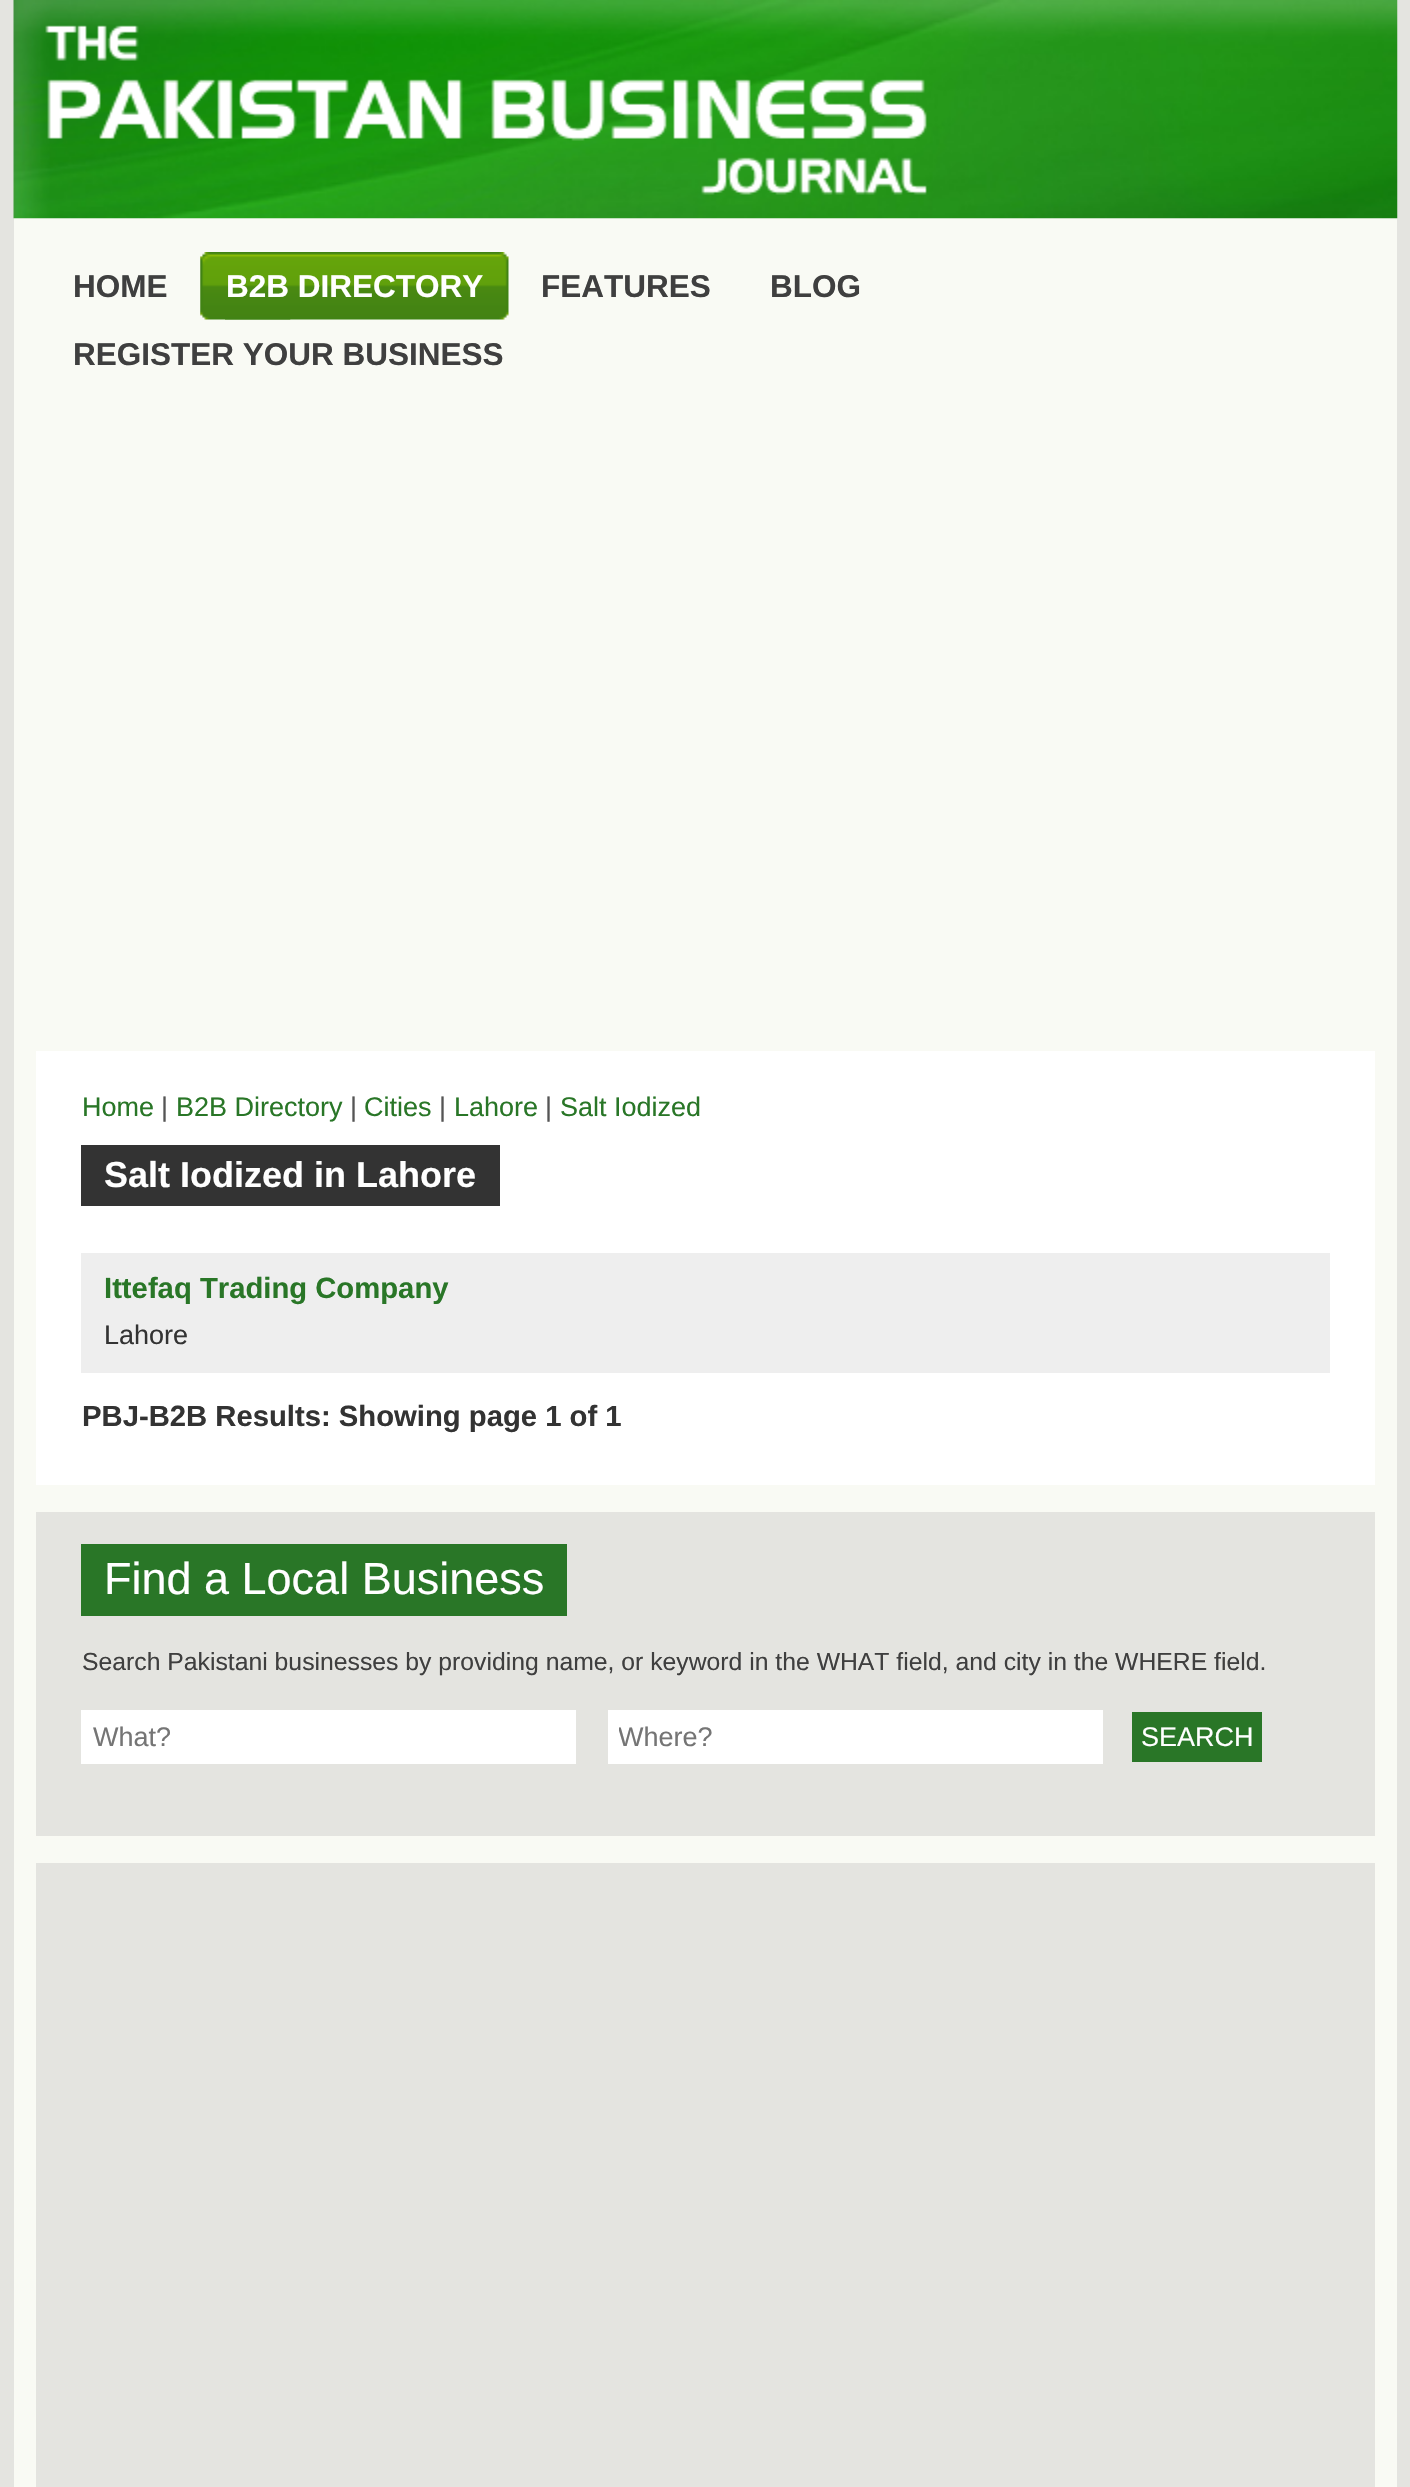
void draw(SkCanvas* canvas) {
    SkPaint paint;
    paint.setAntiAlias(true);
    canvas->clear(0xFFE4E4E0);
    paint.setColor(0xFFF9FAF4);
    canvas->drawRect(SkRect::MakeXYWH(14, 218, 1383, 2269), paint);
    canvas->drawImageRect(SkImages::DeferredFromEncodedData(SkData::MakeFromFileName("img1.png")), SkRect::MakeXYWH(13, 0, 1385, 219), SkSamplingOptions());
    canvas->drawImageRect(SkImages::DeferredFromEncodedData(SkData::MakeFromFileName("img2.png")), SkRect::MakeXYWH(45, 25, 882, 170), SkSamplingOptions());
    SkFont font1(fontMgr->matchFamilyStyle("Liberation Sans", SkFontStyle::Bold()), 31.5f);
    font1.setSubpixel(true);
    paint.setColor(0xFF3F3F3F);
    canvas->drawString("HOME", 73, 297, font1, paint);
    canvas->drawImageRect(SkImages::DeferredFromEncodedData(SkData::MakeFromFileName("img3.png")), SkRect::MakeXYWH(200, 252, 91, 68), SkSamplingOptions());
    canvas->drawImageRect(SkImages::DeferredFromEncodedData(SkData::MakeFromFileName("img4.png")), SkRect::MakeXYWH(225, 252, 284, 68), SkSamplingOptions());
    paint.setColor(0xFFFFFFFF);
    canvas->drawString("B2B DIRECTORY", 226, 297, font1, paint);
    paint.setColor(0xFF3F3F3F);
    canvas->drawString("FEATURES", 541, 297, font1, paint);
    canvas->drawString("BLOG", 770, 297, font1, paint);
    canvas->drawString("REGISTER YOUR BUSINESS", 73, 365, font1, paint);
    paint.setColor(0xFFFFFFFF);
    canvas->drawRect(SkRect::MakeXYWH(36, 1051, 1339, 434), paint);
    SkFont font2(fontMgr->matchFamilyStyle("Liberation Sans", SkFontStyle::Normal()), 27);
    font2.setSubpixel(true);
    paint.setColor(0xFF297627);
    canvas->drawString("Home", 82, 1116, font2, paint);
    paint.setColor(0xFF555555);
    canvas->drawString("|", 161, 1116, font2, paint);
    paint.setColor(0xFF297627);
    canvas->drawString("B2B Directory", 176, 1116, font2, paint);
    paint.setColor(0xFF555555);
    canvas->drawString("|", 350, 1116, font2, paint);
    paint.setColor(0xFF297627);
    canvas->drawString("Cities", 364, 1116, font2, paint);
    paint.setColor(0xFF555555);
    canvas->drawString("|", 439, 1116, font2, paint);
    paint.setColor(0xFF297627);
    canvas->drawString("Lahore", 454, 1116, font2, paint);
    paint.setColor(0xFF555555);
    canvas->drawString("|", 545, 1116, font2, paint);
    paint.setColor(0xFF297627);
    canvas->drawString("Salt Iodized", 560, 1116, font2, paint);
    paint.setColor(0xFF333333);
    canvas->drawRect(SkRect::MakeXYWH(81, 1145, 419, 61), paint);
    SkFont font3(fontMgr->matchFamilyStyle("Liberation Sans", SkFontStyle::Bold()), 36);
    font3.setSubpixel(true);
    paint.setColor(0xFFFFFFFF);
    canvas->drawString("Salt Iodized in Lahore", 104, 1187, font3, paint);
    paint.setColor(0xFFEEEEEE);
    canvas->drawRect(SkRect::MakeXYWH(81, 1253, 1249, 120), paint);
    SkFont font4(fontMgr->matchFamilyStyle("Liberation Sans", SkFontStyle::Bold()), 29.25f);
    font4.setSubpixel(true);
    paint.setColor(0xFF297627);
    canvas->drawString("Ittefaq Trading Company", 104, 1298, font4, paint);
    paint.setColor(0xFF333333);
    canvas->drawString("Lahore", 104, 1344, font2, paint);
    canvas->drawString("PBJ-B2B Results: Showing page 1 of 1", 82, 1426, font4, paint);
    paint.setColor(0xFFE4E4E0);
    canvas->drawRect(SkRect::MakeXYWH(36, 1512, 1339, 324), paint);
    paint.setColor(0xFF297627);
    canvas->drawRect(SkRect::MakeXYWH(81, 1544, 486, 72), paint);
    SkFont font5(fontMgr->matchFamilyStyle("Liberation Sans", SkFontStyle::Normal()), 45);
    font5.setSubpixel(true);
    paint.setColor(0xFFFFFFFF);
    canvas->drawString("Find a Local Business", 104, 1594, font5, paint);
    SkFont font6(fontMgr->matchFamilyStyle("Liberation Sans", SkFontStyle::Normal()), 24.75f);
    font6.setSubpixel(true);
    paint.setColor(0xFF3F3F3F);
    canvas->drawString("Search Pakistani businesses by providing name, or keyword in the WHAT field, and city in the WHERE field.", 82, 1670, font6, paint);
    paint.setColor(0xFFFFFFFF);
    canvas->drawRect(SkRect::MakeXYWH(81, 1710, 495, 54), paint);
    paint.setColor(0xFF757575);
    canvas->drawString("What?", 93, 1746, font2, paint);
    paint.setColor(0xFFFFFFFF);
    canvas->drawRect(SkRect::MakeXYWH(608, 1710, 495, 54), paint);
    canvas->save();
    canvas->clipRect(SkRect::MakeXYWH(619, 1721, 472, 32));
    paint.setColor(0xFF757575);
    canvas->drawString("Where?", 618, 1746, font2, paint);
    canvas->restore();
    paint.setColor(0xFF297627);
    canvas->drawRect(SkRect::MakeXYWH(1132, 1712, 130, 50), paint);
    paint.setColor(0xFFFFFFFF);
    canvas->drawString("SEARCH", 1141, 1746, font2, paint);
    paint.setColor(0xFFE4E4E0);
    canvas->drawRect(SkRect::MakeXYWH(36, 1863, 1339, 624), paint);
}
